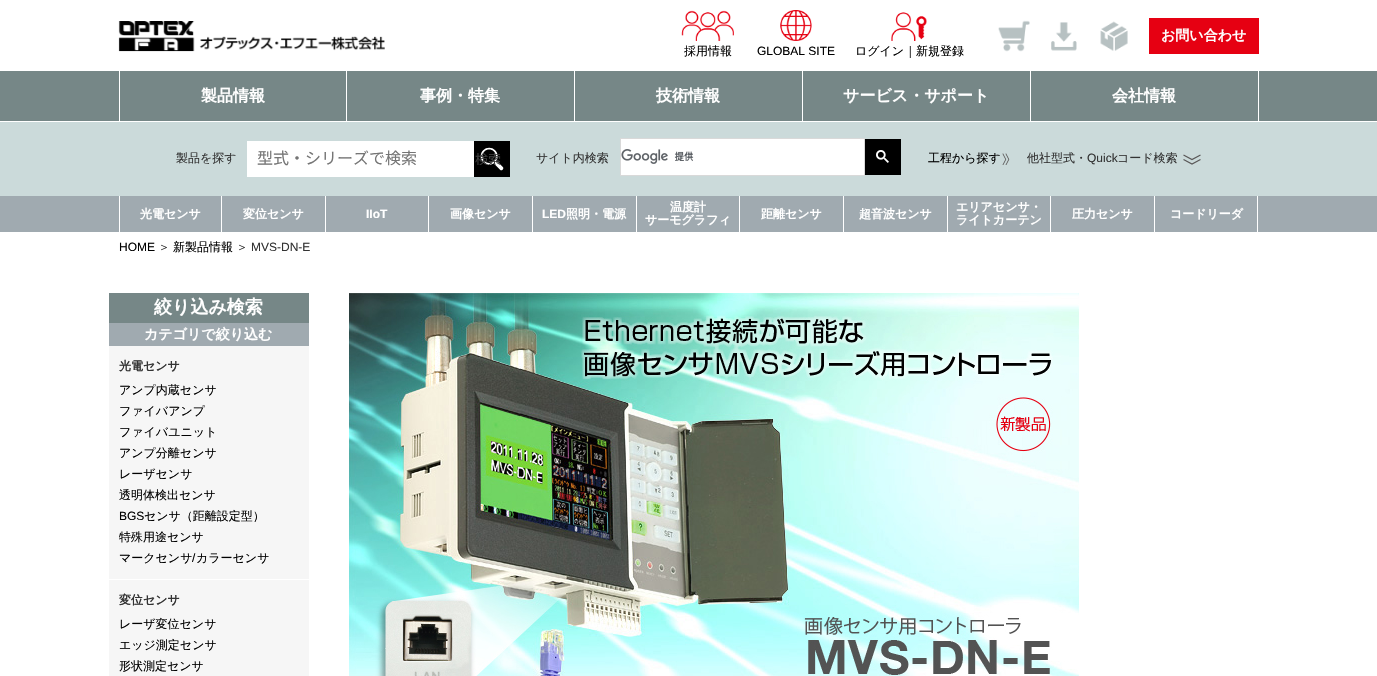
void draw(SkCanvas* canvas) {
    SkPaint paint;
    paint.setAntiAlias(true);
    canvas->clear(0xFFFFFFFF);
    canvas->drawImageRect(SkImages::DeferredFromEncodedData(SkData::MakeFromFileName("img1.png")), SkRect::MakeXYWH(118, 21, 267, 31), SkSamplingOptions());
    paint.setColor(0xFFE60012);
    canvas->drawRect(SkRect::MakeXYWH(1149, 18, 110, 36), paint);
    SkFont font1(fontMgr->matchFamilyStyle("WenQuanYi Zen Hei", SkFontStyle::Bold()), 14);
    font1.setSubpixel(true);
    paint.setColor(0xFFFFFFFF);
    canvas->drawString("お問い合わせ", 1161, 40, font1, paint);
    canvas->drawImageRect(SkImages::DeferredFromEncodedData(SkData::MakeFromFileName("img2.png")), SkRect::MakeXYWH(681, 10, 53, 31), SkSamplingOptions());
    SkFont font2(fontMgr->matchFamilyStyle("WenQuanYi Zen Hei", SkFontStyle(500, SkFontStyle::kNormal_Width, SkFontStyle::kUpright_Slant)), 12);
    font2.setSubpixel(true);
    paint.setColor(0xFF000000);
    canvas->drawString("採用情報", 684, 55, font2, paint);
    canvas->drawImageRect(SkImages::DeferredFromEncodedData(SkData::MakeFromFileName("img3.png")), SkRect::MakeXYWH(780, 10, 32, 31), SkSamplingOptions());
    SkFont font3(fontMgr->matchFamilyStyle("Liberation Sans", SkFontStyle::Normal()), 12);
    font3.setSubpixel(true);
    canvas->drawString("GLOBAL SITE", 757, 55, font3, paint);
    canvas->drawImageRect(SkImages::DeferredFromEncodedData(SkData::MakeFromFileName("img4.png")), SkRect::MakeXYWH(891, 12, 36, 29), SkSamplingOptions());
    canvas->drawString("ログイン｜新規登録", 855, 55, font2, paint);
    canvas->drawImageRect(SkImages::DeferredFromEncodedData(SkData::MakeFromFileName("img5.png")), SkRect::MakeXYWH(998, 20, 32, 32), SkSamplingOptions());
    canvas->drawImageRect(SkImages::DeferredFromEncodedData(SkData::MakeFromFileName("img6.png")), SkRect::MakeXYWH(1051, 22, 26, 29), SkSamplingOptions());
    canvas->drawImageRect(SkImages::DeferredFromEncodedData(SkData::MakeFromFileName("img7.png")), SkRect::MakeXYWH(1100, 21, 28, 30), SkSamplingOptions());
    paint.setColor(0xFF768787);
    canvas->drawRect(SkRect::MakeXYWH(0, 71, 1377, 50), paint);
    paint.setColor(0xFFFFFFFF);
    canvas->drawRect(SkRect::MakeXYWH(346, 71, 1, 50), paint);
    canvas->drawRect(SkRect::MakeXYWH(119, 71, 1, 50), paint);
    SkFont font4(fontMgr->matchFamilyStyle("WenQuanYi Zen Hei", SkFontStyle::Bold()), 16);
    font4.setSubpixel(true);
    canvas->drawString("製品情報", 201, 101, font4, paint);
    canvas->drawRect(SkRect::MakeXYWH(574, 71, 1, 50), paint);
    canvas->drawString("事例・特集", 420, 101, font4, paint);
    canvas->drawRect(SkRect::MakeXYWH(802, 71, 1, 50), paint);
    canvas->drawString("技術情報", 656, 101, font4, paint);
    canvas->drawRect(SkRect::MakeXYWH(1030, 71, 1, 50), paint);
    canvas->drawString("サービス・サポート", 843, 101, font4, paint);
    canvas->drawRect(SkRect::MakeXYWH(1258, 71, 1, 50), paint);
    canvas->drawString("会社情報", 1112, 101, font4, paint);
    paint.setColor(0xFFCBDADA);
    canvas->drawRect(SkRect::MakeXYWH(0, 122, 1377, 74), paint);
    paint.setColor(0xFF333333);
    canvas->drawString("製品を探す", 176, 162, font2, paint);
    paint.setColor(0xFFFFFFFF);
    canvas->drawRect(SkRect::MakeXYWH(247, 141, 227, 36), paint);
    SkFont font5(fontMgr->matchFamilyStyle("Noto Sans CJK JP", SkFontStyle::Normal()), 16);
    font5.setSubpixel(true);
    paint.setColor(0xFF757575);
    canvas->drawString("型式・シリーズで検索", 257, 164, font5, paint);
    paint.setColor(0xFF000000);
    canvas->drawRect(SkRect::MakeXYWH(474, 141, 36, 36), paint);
    canvas->drawImageRect(SkImages::DeferredFromEncodedData(SkData::MakeFromFileName("img8.png")), SkRect::MakeXYWH(480, 147, 24, 24), SkSamplingOptions());
    SkFont font6(fontMgr->matchFamilyStyle("Noto Sans CJK JP", SkFontStyle::Normal()), 13);
    font6.setSubpixel(true);
    paint.setColor(0xFF3D3D3D);
    canvas->drawString("検索", 475, 164, font6, paint);
    paint.setColor(0xFF333333);
    canvas->drawString("サイト内検索", 536, 162, font2, paint);
    paint.setColor(0xFFFFFFFF);
    canvas->drawRect(SkRect::MakeXYWH(620.5f, 138.5f, 244, 37), paint);
    paint.setStyle(SkPaint::kStroke_Style);
    paint.setStrokeWidth(1);
    paint.setColor(0xFFD9D9D9);
    canvas->drawRect(SkRect::MakeXYWH(620.5f, 138.5f, 244, 37), paint);
    canvas->drawImageRect(SkImages::DeferredFromEncodedData(SkData::MakeFromFileName("img9.png")), SkRect::MakeXYWH(621, 149, 73, 15), SkSamplingOptions());
    paint.setStyle(SkPaint::kFill_Style);
    paint.setColor(0xFF000000);
    canvas->drawRect(SkRect::MakeXYWH(865, 139, 36, 36), paint);
    canvas->drawImageRect(SkImages::DeferredFromEncodedData(SkData::MakeFromFileName("img10.png")), SkRect::MakeXYWH(876, 150, 13, 13), SkSamplingOptions());
    canvas->drawString("工程から探す", 928, 162, font2, paint);
    canvas->drawImageRect(SkImages::DeferredFromEncodedData(SkData::MakeFromFileName("img11.png")), SkRect::MakeXYWH(1002, 153, 8, 12), SkSamplingOptions());
    paint.setColor(0xFF333333);
    canvas->drawString("他社型式・", 1027, 162, font2, paint);
    canvas->drawString("Quick", 1087, 162, font3, paint);
    canvas->drawString("コード検索", 1117, 162, font2, paint);
    paint.setStyle(SkPaint::kStroke_Style);
    paint.setStrokeWidth(1.2f);
    paint.setColor(0xFF595757);
    canvas->drawPath(SkPathBuilder().moveTo(1183.5f, 155).lineTo(1192, 159.5f).lineTo(1200.5f, 155).moveTo(1183.5f, 159.5f).lineTo(1192, 164).lineTo(1200.5f, 159.5f).detach(), paint);
    paint.setStyle(SkPaint::kFill_Style);
    paint.setColor(0xFFA0AAB0);
    canvas->drawRect(SkRect::MakeXYWH(0, 196, 1377, 36), paint);
    paint.setColor(0xFFFFFFFF);
    canvas->drawRect(SkRect::MakeXYWH(221, 196, 1, 36), paint);
    canvas->drawRect(SkRect::MakeXYWH(119, 196, 1, 36), paint);
    SkFont font7(fontMgr->matchFamilyStyle("WenQuanYi Zen Hei", SkFontStyle::Bold()), 12);
    font7.setSubpixel(true);
    canvas->drawString("光電センサ", 140, 218, font7, paint);
    canvas->drawRect(SkRect::MakeXYWH(325, 196, 1, 36), paint);
    canvas->drawString("変位センサ", 243, 218, font7, paint);
    canvas->drawRect(SkRect::MakeXYWH(428, 196, 1, 36), paint);
    SkFont font8(fontMgr->matchFamilyStyle("Liberation Sans", SkFontStyle::Bold()), 12);
    font8.setSubpixel(true);
    canvas->drawString("IIoT", 366, 218, font8, paint);
    canvas->drawRect(SkRect::MakeXYWH(532, 196, 1, 36), paint);
    canvas->drawString("画像センサ", 450, 218, font7, paint);
    canvas->drawRect(SkRect::MakeXYWH(636, 196, 1, 36), paint);
    canvas->drawString("LED", 542, 218, font8, paint);
    canvas->drawString("照明・電源", 566, 218, font7, paint);
    canvas->drawRect(SkRect::MakeXYWH(739, 196, 1, 36), paint);
    canvas->drawString("温度計", 670, 211, font7, paint);
    canvas->drawString("サーモグラフィ", 645, 224, font7, paint);
    canvas->drawRect(SkRect::MakeXYWH(843, 196, 1, 36), paint);
    canvas->drawString("距離センサ", 761, 218, font7, paint);
    canvas->drawRect(SkRect::MakeXYWH(947, 196, 1, 36), paint);
    canvas->drawString("超音波センサ", 859, 218, font7, paint);
    canvas->drawRect(SkRect::MakeXYWH(1050, 196, 1, 36), paint);
    canvas->drawString("エリアセンサ・", 956, 211, font7, paint);
    canvas->drawString("ライトカーテン", 956, 224, font7, paint);
    canvas->drawRect(SkRect::MakeXYWH(1154, 196, 1, 36), paint);
    canvas->drawString("圧力センサ", 1072, 218, font7, paint);
    canvas->drawRect(SkRect::MakeXYWH(1257, 196, 1, 36), paint);
    canvas->drawString("コードリーダ", 1170, 218, font7, paint);
    paint.setColor(0xFF000000);
    canvas->drawString("HOME", 119, 251, font3, paint);
    paint.setColor(0xFF333333);
    canvas->drawString("＞", 158, 251, font2, paint);
    paint.setColor(0xFF000000);
    canvas->drawString("新製品情報", 173, 251, font2, paint);
    paint.setColor(0xFF333333);
    canvas->drawString("＞", 236, 251, font2, paint);
    canvas->drawString("MVS-DN-E", 251, 251, font3, paint);
    paint.setColor(0xFFF6F6F6);
    canvas->drawRect(SkRect::MakeXYWH(109, 346, 200, 330), paint);
    paint.setColor(0xFF768787);
    canvas->drawRect(SkRect::MakeXYWH(109, 293, 200, 30), paint);
    SkFont font9(fontMgr->matchFamilyStyle("WenQuanYi Zen Hei", SkFontStyle::Bold()), 18);
    font9.setSubpixel(true);
    paint.setColor(0xFFFFFFFF);
    canvas->drawString("絞り込み検索", 154, 313, font9, paint);
    paint.setColor(0xFFA0AAB0);
    canvas->drawRect(SkRect::MakeXYWH(109, 323, 200, 23), paint);
    paint.setColor(0xFFFFFFFF);
    canvas->drawString("カテゴリで絞り込む", 144, 339, font1, paint);
    canvas->drawRect(SkRect::MakeXYWH(109, 579, 200, 1), paint);
    paint.setColor(0xFF333333);
    canvas->drawString("光電センサ", 119, 370, font7, paint);
    paint.setColor(0xFF000000);
    canvas->drawString("アンプ内蔵センサ", 119, 394, font2, paint);
    canvas->drawString("ファイバアンプ", 119, 415, font2, paint);
    canvas->drawString("ファイバユニット", 119, 436, font2, paint);
    canvas->drawString("アンプ分離センサ", 119, 457, font2, paint);
    canvas->drawString("レーザセンサ", 119, 478, font2, paint);
    canvas->drawString("透明体検出センサ", 119, 499, font2, paint);
    canvas->drawString("BGS", 119, 520, font3, paint);
    canvas->drawString("センサ（距離設定型）", 144, 520, font2, paint);
    canvas->drawString("特殊用途センサ", 119, 541, font2, paint);
    canvas->drawString("マークセンサ カラーセンサ", 119, 562, font2, paint);
    canvas->drawString("/", 192, 562, font3, paint);
    paint.setColor(0xFF333333);
    canvas->drawString("変位センサ", 119, 604, font7, paint);
    paint.setColor(0xFF000000);
    canvas->drawString("レーザ変位センサ", 119, 628, font2, paint);
    canvas->drawString("エッジ測定センサ", 119, 649, font2, paint);
    canvas->drawString("形状測定センサ", 119, 670, font2, paint);
    canvas->drawImageRect(SkImages::DeferredFromEncodedData(SkData::MakeFromFileName("img12.png")), SkRect::MakeXYWH(349, 293, 730, 383), SkSamplingOptions());
}
